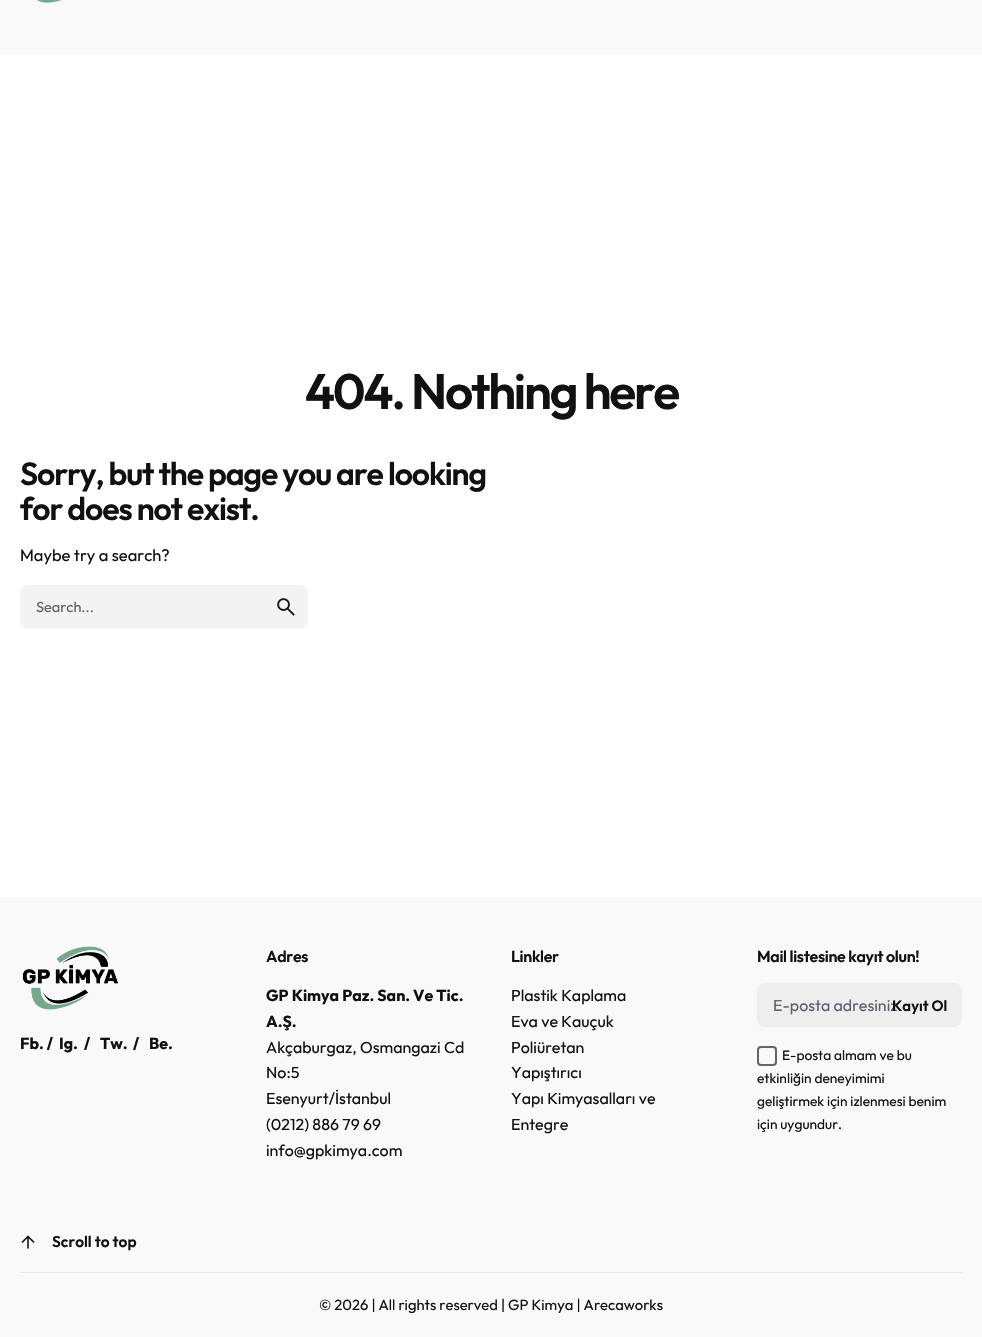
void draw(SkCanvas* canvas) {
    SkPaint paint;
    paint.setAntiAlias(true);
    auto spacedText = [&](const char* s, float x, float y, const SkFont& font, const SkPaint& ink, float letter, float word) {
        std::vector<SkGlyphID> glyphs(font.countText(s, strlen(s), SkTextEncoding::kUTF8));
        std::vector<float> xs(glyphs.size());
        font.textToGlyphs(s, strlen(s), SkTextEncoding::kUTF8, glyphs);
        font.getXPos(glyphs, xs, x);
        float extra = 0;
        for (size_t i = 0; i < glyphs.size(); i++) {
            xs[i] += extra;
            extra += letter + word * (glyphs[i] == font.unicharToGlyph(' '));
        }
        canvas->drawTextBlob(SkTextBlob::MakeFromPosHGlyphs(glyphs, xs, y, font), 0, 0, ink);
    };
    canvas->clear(0xFFFFFFFF);
    paint.setColor(0xFFF9F9F9);
    canvas->drawRect(SkRect::MakeXYWH(0, 0, 982, 54), paint);
    canvas->drawImageRect(SkImages::DeferredFromEncodedData(SkData::MakeFromFileName("img1.png")), SkRect::MakeXYWH(36, 0, 27, 4), SkSamplingOptions());
    SkFont font1(fontMgr->matchFamilyStyle("Outfit", SkFontStyle(600, SkFontStyle::kNormal_Width, SkFontStyle::kUpright_Slant)), 49.75f);
    font1.setSubpixel(true);
    paint.setColor(0xFF111013);
    spacedText("404. Nothing here", 305, 409, font1, paint, -2.25f, 0);
    SkFont font2(fontMgr->matchFamilyStyle("Outfit", SkFontStyle(600, SkFontStyle::kNormal_Width, SkFontStyle::kUpright_Slant)), 32);
    font2.setSubpixel(true);
    spacedText("Sorry, but the page you are looking", 20, 485, font2, paint, -1.1f, 0);
    spacedText("for does not exist.", 20, 520, font2, paint, -1.1f, 0);
    SkFont font3(fontMgr->matchFamilyStyle("Outfit", SkFontStyle::Normal()), 16.5f);
    font3.setSubpixel(true);
    canvas->drawString("Maybe try a search?", 20, 561, font3, paint);
    paint.setColor(0xFFF3F3F3);
    canvas->drawRoundRect(SkRect::MakeXYWH(20, 585, 288, 44), 8, 8, paint);
    SkFont font4(fontMgr->matchFamilyStyle("Outfit", SkFontStyle::Normal()), 14.5f);
    font4.setSubpixel(true);
    paint.setColor(0xFF635D6E);
    canvas->drawString("Search...", 36, 612, font4, paint);
    canvas->drawImageRect(SkImages::DeferredFromEncodedData(SkData::MakeFromFileName("img2.png")), SkRect::MakeXYWH(277, 598, 18, 18), SkSamplingOptions());
    paint.setColor(0xFFF9F9F9);
    canvas->drawRect(SkRect::MakeXYWH(0, 897, 982, 440), paint);
    canvas->drawImageRect(SkImages::DeferredFromEncodedData(SkData::MakeFromFileName("img3.png")), SkRect::MakeXYWH(22, 946, 96, 64), SkSamplingOptions());
    SkFont font5(fontMgr->matchFamilyStyle("Outfit", SkFontStyle::Bold()), 16);
    font5.setSubpixel(true);
    paint.setColor(0xFF111013);
    canvas->drawString("Fb. /", 20, 1049, font5, paint);
    canvas->drawString("Ig.", 59, 1049, font5, paint);
    canvas->drawString("/", 84, 1049, font5, paint);
    canvas->drawString("Tw.", 100, 1049, font5, paint);
    canvas->drawString("/", 133, 1049, font5, paint);
    canvas->drawString("Be.", 149, 1049, font5, paint);
    SkFont font6(fontMgr->matchFamilyStyle("Outfit", SkFontStyle(600, SkFontStyle::kNormal_Width, SkFontStyle::kUpright_Slant)), 16);
    font6.setSubpixel(true);
    spacedText("Adres", 266, 962, font6, paint, -0.3f, 0);
    canvas->drawString("GP Kimya Paz. San. Ve Tic.", 266, 1001, font5, paint);
    canvas->drawString("A.Ş.", 266, 1027, font5, paint);
    SkFont font7(fontMgr->matchFamilyStyle("Outfit", SkFontStyle::Normal()), 16);
    font7.setSubpixel(true);
    canvas->drawString("Akçaburgaz, Osmangazi Cd", 266, 1053, font7, paint);
    canvas->drawString("No:5", 266, 1078, font7, paint);
    canvas->drawString("Esenyurt/İstanbul", 266, 1104, font7, paint);
    canvas->drawString("(0212) 886 79 69", 266, 1130, font7, paint);
    canvas->drawString("info@gpkimya.com", 266, 1156, font7, paint);
    spacedText("Linkler", 511, 962, font6, paint, -0.3f, 0);
    canvas->drawString("Plastik Kaplama", 511, 1001, font7, paint);
    canvas->drawString("Eva ve Kauçuk", 511, 1027, font7, paint);
    canvas->drawString("Poliüretan", 511, 1053, font7, paint);
    canvas->drawString("Yapıştırıcı", 511, 1078, font7, paint);
    canvas->drawString("Yapı Kimyasalları ve", 511, 1104, font7, paint);
    canvas->drawString("Entegre", 511, 1130, font7, paint);
    spacedText("Mail listesine kayıt olun!", 757, 962, font6, paint, -0.3f, 0);
    paint.setColor(0xFFEEEEEE);
    canvas->drawRoundRect(SkRect::MakeXYWH(757, 983, 205, 44), 8, 8, paint);
    paint.setColor(0xFF635D6E);
    canvas->drawString("E-posta adresiniz", 773, 1011, font7, paint);
    SkFont font8(fontMgr->matchFamilyStyle("Outfit", SkFontStyle(600, SkFontStyle::kNormal_Width, SkFontStyle::kUpright_Slant)), 15);
    font8.setSubpixel(true);
    paint.setColor(0xFF111013);
    canvas->drawString("Kayıt Ol", 892, 1011, font8, paint);
    paint.setStyle(SkPaint::kStroke_Style);
    paint.setStrokeWidth(2);
    paint.setColor(0xFF646466);
    canvas->drawRoundRect(SkRect::MakeXYWH(758, 1047, 18, 18), 3, 3, paint);
    SkFont font9(fontMgr->matchFamilyStyle("Outfit", SkFontStyle::Normal()), 13.75f);
    font9.setSubpixel(true);
    paint.setStyle(SkPaint::kFill_Style);
    paint.setColor(0xFF111013);
    canvas->drawString("E-posta almam ve bu", 782, 1060, font9, paint);
    canvas->drawString("etkinliğin deneyimimi", 757, 1083, font9, paint);
    canvas->drawString("geliştirmek için izlenmesi benim", 757, 1106, font9, paint);
    canvas->drawString("için uygundur.", 757, 1129, font9, paint);
    canvas->drawImageRect(SkImages::DeferredFromEncodedData(SkData::MakeFromFileName("img4.png")), SkRect::MakeXYWH(21, 1235, 14, 14), SkSamplingOptions());
    SkFont font10(fontMgr->matchFamilyStyle("Outfit", SkFontStyle(600, SkFontStyle::kNormal_Width, SkFontStyle::kUpright_Slant)), 15.5f);
    font10.setSubpixel(true);
    canvas->drawString("Scroll to top", 52, 1247, font10, paint);
    paint.setColor(0xFFE7E7E7);
    canvas->drawRect(SkRect::MakeXYWH(20, 1272, 942, 1), paint);
    SkFont font11(fontMgr->matchFamilyStyle("Outfit", SkFontStyle::Normal()), 14.75f);
    font11.setSubpixel(true);
    paint.setColor(0xFF111013);
    canvas->drawString("© 2026 | All rights reserved | GP Kimya | Arecaworks", 319, 1310, font11, paint);
}
